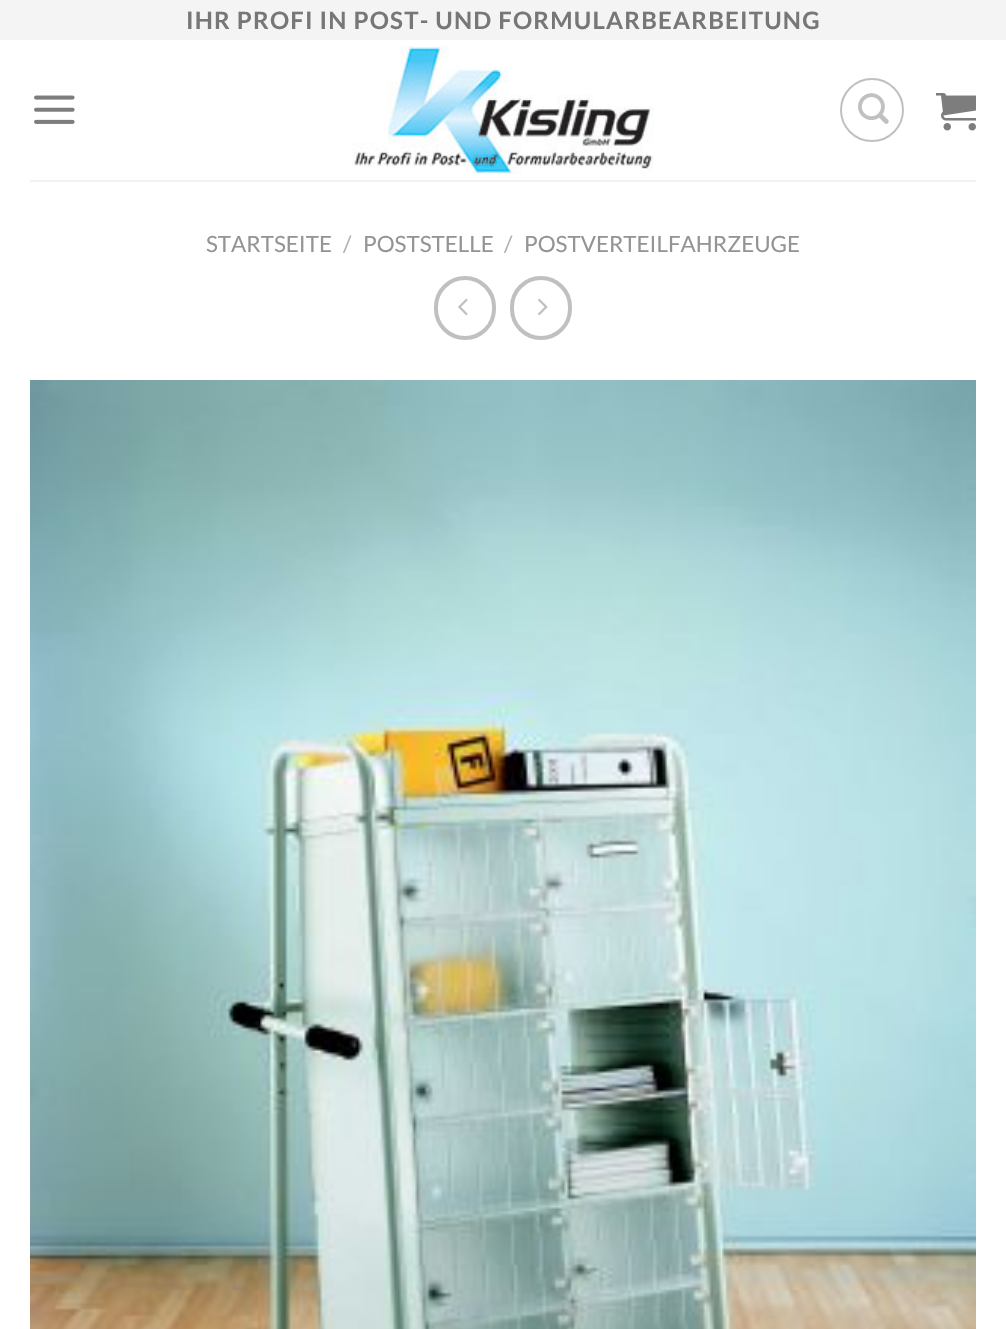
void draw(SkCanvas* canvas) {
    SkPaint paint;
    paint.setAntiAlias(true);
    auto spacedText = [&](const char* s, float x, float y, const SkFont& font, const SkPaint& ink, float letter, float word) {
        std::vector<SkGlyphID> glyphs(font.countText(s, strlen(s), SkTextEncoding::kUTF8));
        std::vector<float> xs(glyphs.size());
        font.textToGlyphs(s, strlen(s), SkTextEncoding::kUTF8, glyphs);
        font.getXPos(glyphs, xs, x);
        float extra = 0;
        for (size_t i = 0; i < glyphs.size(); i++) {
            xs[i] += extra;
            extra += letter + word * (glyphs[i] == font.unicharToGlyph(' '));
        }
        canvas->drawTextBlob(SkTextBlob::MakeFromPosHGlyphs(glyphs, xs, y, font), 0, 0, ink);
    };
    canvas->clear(0xFFFFFFFF);
    paint.setColor(0xFFF4F4F4);
    canvas->drawRect(SkRect::MakeXYWH(0, 0, 1006, 40), paint);
    SkFont font1(fontMgr->matchFamilyStyle("Lato", SkFontStyle::Bold()), 24);
    font1.setSubpixel(true);
    paint.setColor(0xFF777777);
    spacedText("IHR PROFI IN POST- UND FORMULARBEARBEITUNG", 186, 29, font1, paint, 1.2f, 0);
    canvas->drawImageRect(SkImages::DeferredFromEncodedData(SkData::MakeFromFileName("img1.png")), SkRect::MakeXYWH(34, 95, 41, 29), SkSamplingOptions());
    canvas->drawImageRect(SkImages::DeferredFromEncodedData(SkData::MakeFromFileName("img2.png")), SkRect::MakeXYWH(352, 46, 302, 128), SkSamplingOptions());
    paint.setStyle(SkPaint::kStroke_Style);
    paint.setStrokeWidth(2);
    paint.setColor(0xFFC0C0C0);
    canvas->drawCircle(872, 110, 31, paint);
    canvas->drawImageRect(SkImages::DeferredFromEncodedData(SkData::MakeFromFileName("img3.png")), SkRect::MakeXYWH(858, 93, 31, 31), SkSamplingOptions());
    canvas->drawImageRect(SkImages::DeferredFromEncodedData(SkData::MakeFromFileName("img4.png")), SkRect::MakeXYWH(936, 93, 40, 38), SkSamplingOptions());
    paint.setStyle(SkPaint::kFill_Style);
    paint.setColor(0xFFF1F1F1);
    canvas->drawRect(SkRect::MakeXYWH(30, 180, 946, 2), paint);
    SkFont font2(fontMgr->matchFamilyStyle("Lato", SkFontStyle::Normal()), 22.4f);
    font2.setSubpixel(true);
    paint.setColor(0xFF949494);
    canvas->drawString("STARTSEITE", 206, 252, font2, paint);
    paint.setColor(0xFFB2B2B2);
    canvas->drawString("/", 343, 252, font2, paint);
    paint.setColor(0xFF949494);
    canvas->drawString("POSTSTELLE", 363, 252, font2, paint);
    paint.setColor(0xFFB2B2B2);
    canvas->drawString("/", 504, 252, font2, paint);
    paint.setColor(0xFF949494);
    canvas->drawString("POSTVERTEILFAHRZEUGE", 524, 252, font2, paint);
    paint.setStyle(SkPaint::kStroke_Style);
    paint.setStrokeWidth(4);
    paint.setColor(0xFFC0C0C0);
    canvas->drawRoundRect(SkRect::MakeXYWH(436, 278, 58, 60), 29, 29, paint);
    canvas->drawImageRect(SkImages::DeferredFromEncodedData(SkData::MakeFromFileName("img5.png")), SkRect::MakeXYWH(458, 298, 10, 18), SkSamplingOptions());
    canvas->drawRoundRect(SkRect::MakeXYWH(512, 278, 58, 60), 29, 29, paint);
    canvas->drawImageRect(SkImages::DeferredFromEncodedData(SkData::MakeFromFileName("img6.png")), SkRect::MakeXYWH(538, 298, 10, 18), SkSamplingOptions());
    canvas->drawImageRect(SkImages::DeferredFromEncodedData(SkData::MakeFromFileName("img7.png")), SkRect::MakeXYWH(30, 380, 946, 949), SkSamplingOptions());
}
